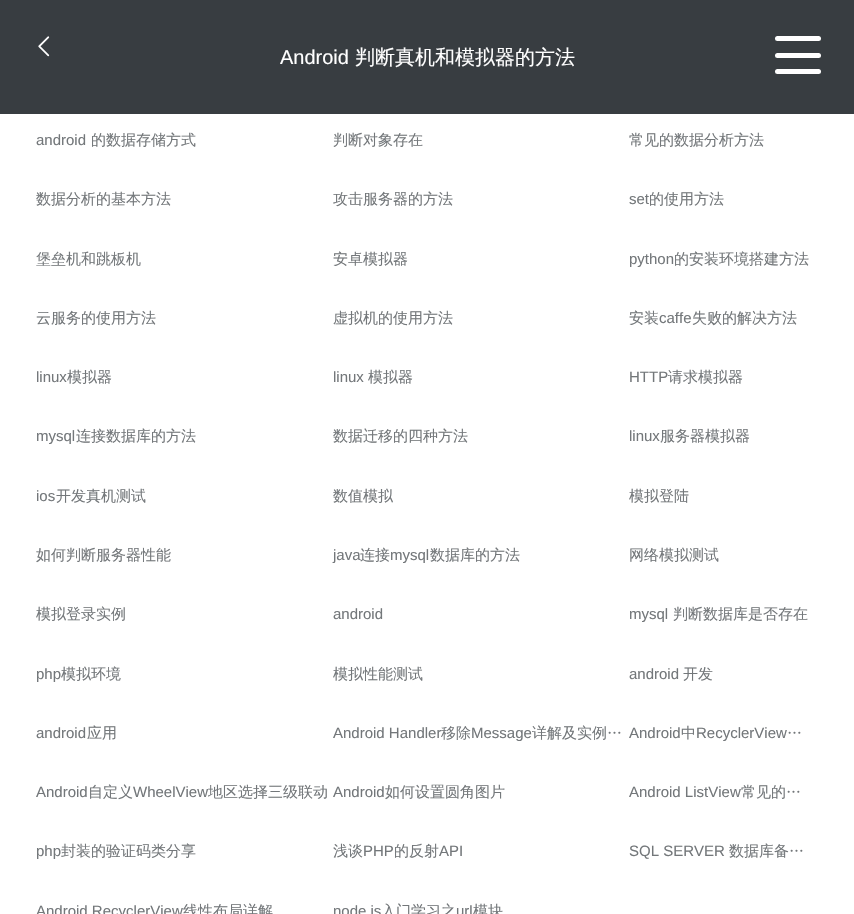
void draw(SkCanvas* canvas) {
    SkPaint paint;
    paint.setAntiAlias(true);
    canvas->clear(0xFFFFFFFF);
    paint.setColor(0xFF383D41);
    canvas->drawRect(SkRect::MakeXYWH(0, 0, 854, 114), paint);
    canvas->drawImageRect(SkImages::DeferredFromEncodedData(SkData::MakeFromFileName("img1.png")), SkRect::MakeXYWH(38, 36, 12, 21), SkSamplingOptions());
    SkFont font1(fontMgr->matchFamilyStyle("Liberation Sans", SkFontStyle::Normal()), 20);
    font1.setSubpixel(true);
    paint.setColor(0xFFFFFFFF);
    canvas->drawString("Android", 280, 64, font1, paint);
    SkFont font2(fontMgr->matchFamilyStyle("WenQuanYi Zen Hei", SkFontStyle(500, SkFontStyle::kNormal_Width, SkFontStyle::kUpright_Slant)), 20);
    font2.setSubpixel(true);
    canvas->drawString("判断真机和模拟器的方法", 355, 64, font2, paint);
    canvas->drawRoundRect(SkRect::MakeXYWH(775, 36, 46, 5), 2.5f, 2.5f, paint);
    canvas->drawRoundRect(SkRect::MakeXYWH(775, 53, 46, 5), 2.5f, 2.5f, paint);
    canvas->drawRoundRect(SkRect::MakeXYWH(775, 69, 46, 5), 2.5f, 2.5f, paint);
    SkFont font3(fontMgr->matchFamilyStyle("Liberation Sans", SkFontStyle::Normal()), 15);
    font3.setSubpixel(true);
    paint.setColor(0xFF73777A);
    canvas->drawString("android", 36, 145, font3, paint);
    SkFont font4(fontMgr->matchFamilyStyle("WenQuanYi Zen Hei", SkFontStyle(500, SkFontStyle::kNormal_Width, SkFontStyle::kUpright_Slant)), 15);
    font4.setSubpixel(true);
    canvas->drawString("的数据存储方式", 91, 145, font4, paint);
    canvas->drawString("判断对象存在", 333, 145, font4, paint);
    canvas->drawString("常见的数据分析方法", 629, 145, font4, paint);
    canvas->drawString("数据分析的基本方法", 36, 204, font4, paint);
    canvas->drawString("攻击服务器的方法", 333, 204, font4, paint);
    canvas->drawString("set", 629, 204, font3, paint);
    canvas->drawString("的使用方法", 649, 204, font4, paint);
    canvas->drawString("堡垒机和跳板机", 36, 264, font4, paint);
    canvas->drawString("安卓模拟器", 333, 264, font4, paint);
    canvas->drawString("python", 629, 264, font3, paint);
    canvas->drawString("的安装环境搭建方法", 674, 264, font4, paint);
    canvas->drawString("云服务的使用方法", 36, 323, font4, paint);
    canvas->drawString("虚拟机的使用方法", 333, 323, font4, paint);
    canvas->drawString("安装", 629, 323, font4, paint);
    canvas->drawString("caffe", 659, 323, font3, paint);
    canvas->drawString("失败的解决方法", 692, 323, font4, paint);
    canvas->drawString("linux", 36, 382, font3, paint);
    canvas->drawString("模拟器", 67, 382, font4, paint);
    canvas->drawString("linux", 333, 382, font3, paint);
    canvas->drawString("模拟器", 368, 382, font4, paint);
    canvas->drawString("HTTP", 629, 382, font3, paint);
    canvas->drawString("请求模拟器", 668, 382, font4, paint);
    canvas->drawString("mysql", 36, 441, font3, paint);
    canvas->drawString("连接数据库的方法", 76, 441, font4, paint);
    canvas->drawString("数据迁移的四种方法", 333, 441, font4, paint);
    canvas->drawString("linux", 629, 441, font3, paint);
    canvas->drawString("服务器模拟器", 660, 441, font4, paint);
    canvas->drawString("ios", 36, 501, font3, paint);
    canvas->drawString("开发真机测试", 56, 501, font4, paint);
    canvas->drawString("数值模拟", 333, 501, font4, paint);
    canvas->drawString("模拟登陆", 629, 501, font4, paint);
    canvas->drawString("如何判断服务器性能", 36, 560, font4, paint);
    canvas->drawString("java", 333, 560, font3, paint);
    canvas->drawString("连接", 360, 560, font4, paint);
    canvas->drawString("mysql", 390, 560, font3, paint);
    canvas->drawString("数据库的方法", 430, 560, font4, paint);
    canvas->drawString("网络模拟测试", 629, 560, font4, paint);
    canvas->drawString("模拟登录实例", 36, 619, font4, paint);
    canvas->drawString("android", 333, 619, font3, paint);
    canvas->drawString("mysql", 629, 619, font3, paint);
    canvas->drawString("判断数据库是否存在", 673, 619, font4, paint);
    canvas->drawString("php", 36, 679, font3, paint);
    canvas->drawString("模拟环境", 61, 679, font4, paint);
    canvas->drawString("模拟性能测试", 333, 679, font4, paint);
    canvas->drawString("android", 629, 679, font3, paint);
    canvas->drawString("开发", 683, 679, font4, paint);
    canvas->drawString("android", 36, 738, font3, paint);
    canvas->drawString("应用", 87, 738, font4, paint);
    canvas->drawString("Android Handler", 333, 738, font3, paint);
    canvas->drawString("移除", 441, 738, font4, paint);
    canvas->drawString("Message", 471, 738, font3, paint);
    canvas->drawString("详解及实例…", 532, 738, font4, paint);
    canvas->drawString("Android", 629, 738, font3, paint);
    canvas->drawString("中", 681, 738, font4, paint);
    canvas->drawString("RecyclerView", 696, 738, font3, paint);
    canvas->drawString("…", 787, 738, font4, paint);
    canvas->drawString("Android", 36, 797, font3, paint);
    canvas->drawString("自定义", 88, 797, font4, paint);
    canvas->drawString("WheelView", 133, 797, font3, paint);
    canvas->drawString("地区选择三级联动", 208, 797, font4, paint);
    canvas->drawString("Android", 333, 797, font3, paint);
    canvas->drawString("如何设置圆角图片", 385, 797, font4, paint);
    canvas->drawString("Android ListView", 629, 797, font3, paint);
    canvas->drawString("常见的…", 741, 797, font4, paint);
    canvas->drawString("php", 36, 856, font3, paint);
    canvas->drawString("封装的验证码类分享", 61, 856, font4, paint);
    canvas->drawString("浅谈", 333, 856, font4, paint);
    canvas->drawString("PHP", 363, 856, font3, paint);
    canvas->drawString("的反射", 394, 856, font4, paint);
    canvas->drawString("API", 439, 856, font3, paint);
    canvas->drawString("SQL SERVER", 629, 856, font3, paint);
    canvas->drawString("数据库备…", 729, 856, font4, paint);
    canvas->drawString("Android RecyclerView", 36, 916, font3, paint);
    canvas->drawString("线性布局详解", 183, 916, font4, paint);
    canvas->drawString("node.js", 333, 916, font3, paint);
    canvas->drawString("入门学习之", 381, 916, font4, paint);
    canvas->drawString("url", 456, 916, font3, paint);
    canvas->drawString("模块", 473, 916, font4, paint);
}
